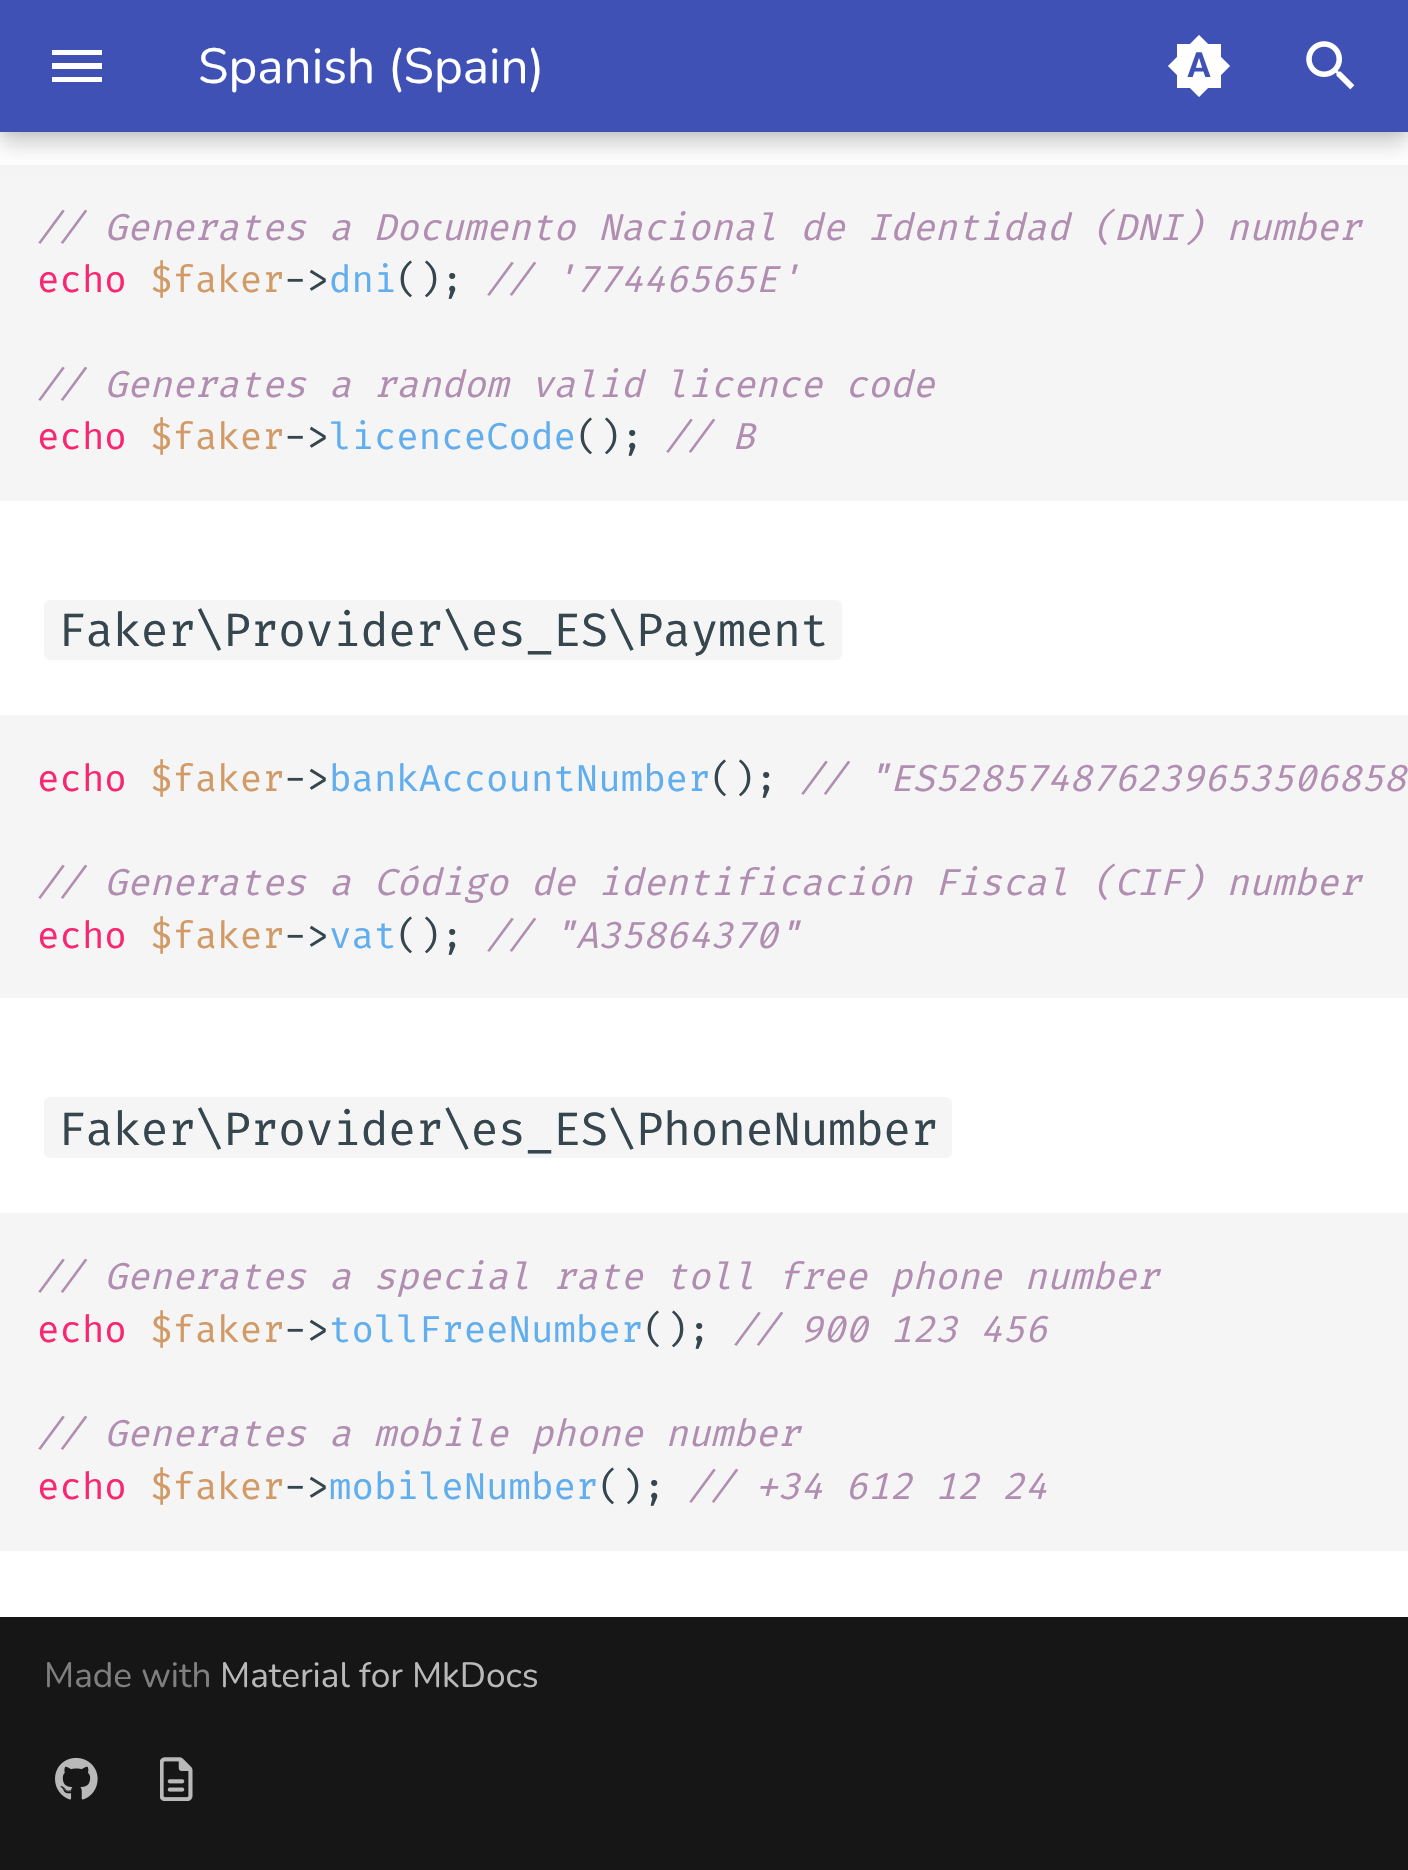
void draw(SkCanvas* canvas) {
    SkPaint paint;
    paint.setAntiAlias(true);
    auto spacedText = [&](const char* s, float x, float y, const SkFont& font, const SkPaint& ink, float letter, float word) {
        std::vector<SkGlyphID> glyphs(font.countText(s, strlen(s), SkTextEncoding::kUTF8));
        std::vector<float> xs(glyphs.size());
        font.textToGlyphs(s, strlen(s), SkTextEncoding::kUTF8, glyphs);
        font.getXPos(glyphs, xs, x);
        float extra = 0;
        for (size_t i = 0; i < glyphs.size(); i++) {
            xs[i] += extra;
            extra += letter + word * (glyphs[i] == font.unicharToGlyph(' '));
        }
        canvas->drawTextBlob(SkTextBlob::MakeFromPosHGlyphs(glyphs, xs, y, font), 0, 0, ink);
    };
    canvas->clear(0xFFFFFFFF);
    paint.setColor(0xFFF5F5F5);
    canvas->drawRect(SkRect::MakeXYWH(0, 165, 1408, 336), paint);
    paint.setColor(0x33000000);
    paint.setMaskFilter(SkMaskFilter::MakeBlur(kNormal_SkBlurStyle, 11));
    canvas->drawRect(SkRect::MakeXYWH(0, 11, 1408, 132), paint);
    paint.setMaskFilter(nullptr);
    paint.setColor(0x1A000000);
    paint.setMaskFilter(SkMaskFilter::MakeBlur(kNormal_SkBlurStyle, 5.5f));
    canvas->drawRect(SkRect::MakeXYWH(0, 0, 1408, 132), paint);
    paint.setMaskFilter(nullptr);
    paint.setColor(0xFF4051B5);
    canvas->drawRect(SkRect::MakeXYWH(0, 0, 1408, 132), paint);
    paint.setColor(0xFFFFFFFF);
    canvas->drawPath(SkPathBuilder().moveTo(52, 50).lineTo(102, 50).lineTo(102, 55).lineTo(52, 55).close().moveTo(52, 63).lineTo(102, 63).lineTo(102, 69).lineTo(52, 69).close().moveTo(52, 77).lineTo(102, 77).lineTo(102, 82).lineTo(52, 82).close().detach(), paint);
    SkFont font1(fontMgr->matchFamilyStyle("Nunito", SkFontStyle::Normal()), 49.5f);
    font1.setSubpixel(true);
    canvas->drawString("Spanish (Spain)", 198, 83, font1, paint);
    canvas->drawImageRect(SkImages::DeferredFromEncodedData(SkData::MakeFromFileName("img1.png")), SkRect::MakeXYWH(1168, 35, 62, 62), SkSamplingOptions());
    canvas->drawImageRect(SkImages::DeferredFromEncodedData(SkData::MakeFromFileName("img2.png")), SkRect::MakeXYWH(1306, 41, 49, 49), SkSamplingOptions());
    SkFont font2(fontMgr->matchFamilyStyle("Fira Code", SkFontStyle::Italic()), 37.4f);
    font2.setSubpixel(true);
    paint.setColor(0xFFB18EB1);
    canvas->drawString("// Generates a Documento Nacional de Identidad (DNI) number", 37, 240, font2, paint);
    SkFont font3(fontMgr->matchFamilyStyle("Fira Code", SkFontStyle::Normal()), 37.4f);
    font3.setSubpixel(true);
    paint.setColor(0xFFF92672);
    canvas->drawString("echo", 37, 292, font3, paint);
    paint.setColor(0xFFD19A66);
    canvas->drawString("$faker", 150, 292, font3, paint);
    paint.setColor(0xFF36464E);
    canvas->drawString("->", 284, 292, font3, paint);
    paint.setColor(0xFF61AEEE);
    canvas->drawString("dni", 329, 292, font3, paint);
    paint.setColor(0xFF36464E);
    canvas->drawString("();", 396, 292, font3, paint);
    paint.setColor(0xFFB18EB1);
    canvas->drawString("// '77446565E'", 486, 292, font2, paint);
    canvas->drawString("// Generates a random valid licence code", 37, 397, font2, paint);
    paint.setColor(0xFFF92672);
    canvas->drawString("echo", 37, 449, font3, paint);
    paint.setColor(0xFFD19A66);
    canvas->drawString("$faker", 150, 449, font3, paint);
    paint.setColor(0xFF36464E);
    canvas->drawString("->", 284, 449, font3, paint);
    paint.setColor(0xFF61AEEE);
    canvas->drawString("licenceCode", 329, 449, font3, paint);
    paint.setColor(0xFF36464E);
    canvas->drawString("();", 576, 449, font3, paint);
    paint.setColor(0xFFB18EB1);
    canvas->drawString("// B", 665, 449, font2, paint);
    paint.setColor(0xFFF5F5F5);
    canvas->drawRoundRect(SkRect::MakeXYWH(44, 600, 798, 60), 6, 6, paint);
    SkFont font4(fontMgr->matchFamilyStyle("Fira Code", SkFontStyle::Normal()), 46.75f);
    font4.setSubpixel(true);
    paint.setColor(0xFF36464E);
    spacedText("Faker\\Provider\\es_ES\\Payment", 58, 646, font4, paint, -0.55f, 0);
    paint.setColor(0xFFF5F5F5);
    canvas->drawRect(SkRect::MakeXYWH(0, 715, 1408, 283), paint);
    paint.setColor(0xFFF92672);
    canvas->drawString("echo", 37, 791, font3, paint);
    paint.setColor(0xFFD19A66);
    canvas->drawString("$faker", 150, 791, font3, paint);
    paint.setColor(0xFF36464E);
    canvas->drawString("->", 284, 791, font3, paint);
    paint.setColor(0xFF61AEEE);
    canvas->drawString("bankAccountNumber", 329, 791, font3, paint);
    paint.setColor(0xFF36464E);
    canvas->drawString("();", 710, 791, font3, paint);
    paint.setColor(0xFFB18EB1);
    canvas->drawString("// \"ES528574876239653506858", 800, 791, font2, paint);
    canvas->drawString("// Generates a Código de identificación Fiscal (CIF) number", 37, 895, font2, paint);
    paint.setColor(0xFFF92672);
    canvas->drawString("echo", 37, 948, font3, paint);
    paint.setColor(0xFFD19A66);
    canvas->drawString("$faker", 150, 948, font3, paint);
    paint.setColor(0xFF36464E);
    canvas->drawString("->", 284, 948, font3, paint);
    paint.setColor(0xFF61AEEE);
    canvas->drawString("vat", 329, 948, font3, paint);
    paint.setColor(0xFF36464E);
    canvas->drawString("();", 396, 948, font3, paint);
    paint.setColor(0xFFB18EB1);
    canvas->drawString("// \"A35864370\"", 486, 948, font2, paint);
    paint.setColor(0xFFF5F5F5);
    canvas->drawRoundRect(SkRect::MakeXYWH(44, 1097, 908, 61), 6, 6, paint);
    paint.setColor(0xFF36464E);
    spacedText("Faker\\Provider\\es_ES\\PhoneNumber", 58, 1145, font4, paint, -0.55f, 0);
    paint.setColor(0xFFF5F5F5);
    canvas->drawRect(SkRect::MakeXYWH(0, 1213, 1408, 338), paint);
    paint.setColor(0xFFB18EB1);
    canvas->drawString("// Generates a special rate toll free phone number", 37, 1289, font2, paint);
    paint.setColor(0xFFF92672);
    canvas->drawString("echo", 37, 1342, font3, paint);
    paint.setColor(0xFFD19A66);
    canvas->drawString("$faker", 150, 1342, font3, paint);
    paint.setColor(0xFF36464E);
    canvas->drawString("->", 284, 1342, font3, paint);
    paint.setColor(0xFF61AEEE);
    canvas->drawString("tollFreeNumber", 329, 1342, font3, paint);
    paint.setColor(0xFF36464E);
    canvas->drawString("();", 643, 1342, font3, paint);
    paint.setColor(0xFFB18EB1);
    canvas->drawString("// 900 123 456", 733, 1342, font2, paint);
    canvas->drawString("// Generates a mobile phone number", 37, 1446, font2, paint);
    paint.setColor(0xFFF92672);
    canvas->drawString("echo", 37, 1499, font3, paint);
    paint.setColor(0xFFD19A66);
    canvas->drawString("$faker", 150, 1499, font3, paint);
    paint.setColor(0xFF36464E);
    canvas->drawString("->", 284, 1499, font3, paint);
    paint.setColor(0xFF61AEEE);
    canvas->drawString("mobileNumber", 329, 1499, font3, paint);
    paint.setColor(0xFF36464E);
    canvas->drawString("();", 598, 1499, font3, paint);
    paint.setColor(0xFFB18EB1);
    canvas->drawString("// +34 612 12 24", 688, 1499, font2, paint);
    paint.setColor(0xFF161616);
    canvas->drawRect(SkRect::MakeXYWH(0, 1617, 1408, 253), paint);
    SkFont font5(fontMgr->matchFamilyStyle("Nunito", SkFontStyle::Normal()), 35.25f);
    font5.setSubpixel(true);
    paint.setColor(0xFF7F7F7F);
    canvas->drawString("Made with", 44, 1687, font5, paint);
    paint.setColor(0xFFB9B9B9);
    canvas->drawString("Material for MkDocs", 220, 1687, font5, paint);
    canvas->drawImageRect(SkImages::DeferredFromEncodedData(SkData::MakeFromFileName("img3.png")), SkRect::MakeXYWH(55, 1757, 43, 43), SkSamplingOptions());
    canvas->drawImageRect(SkImages::DeferredFromEncodedData(SkData::MakeFromFileName("img4.png")), SkRect::MakeXYWH(160, 1757, 33, 44), SkSamplingOptions());
}
